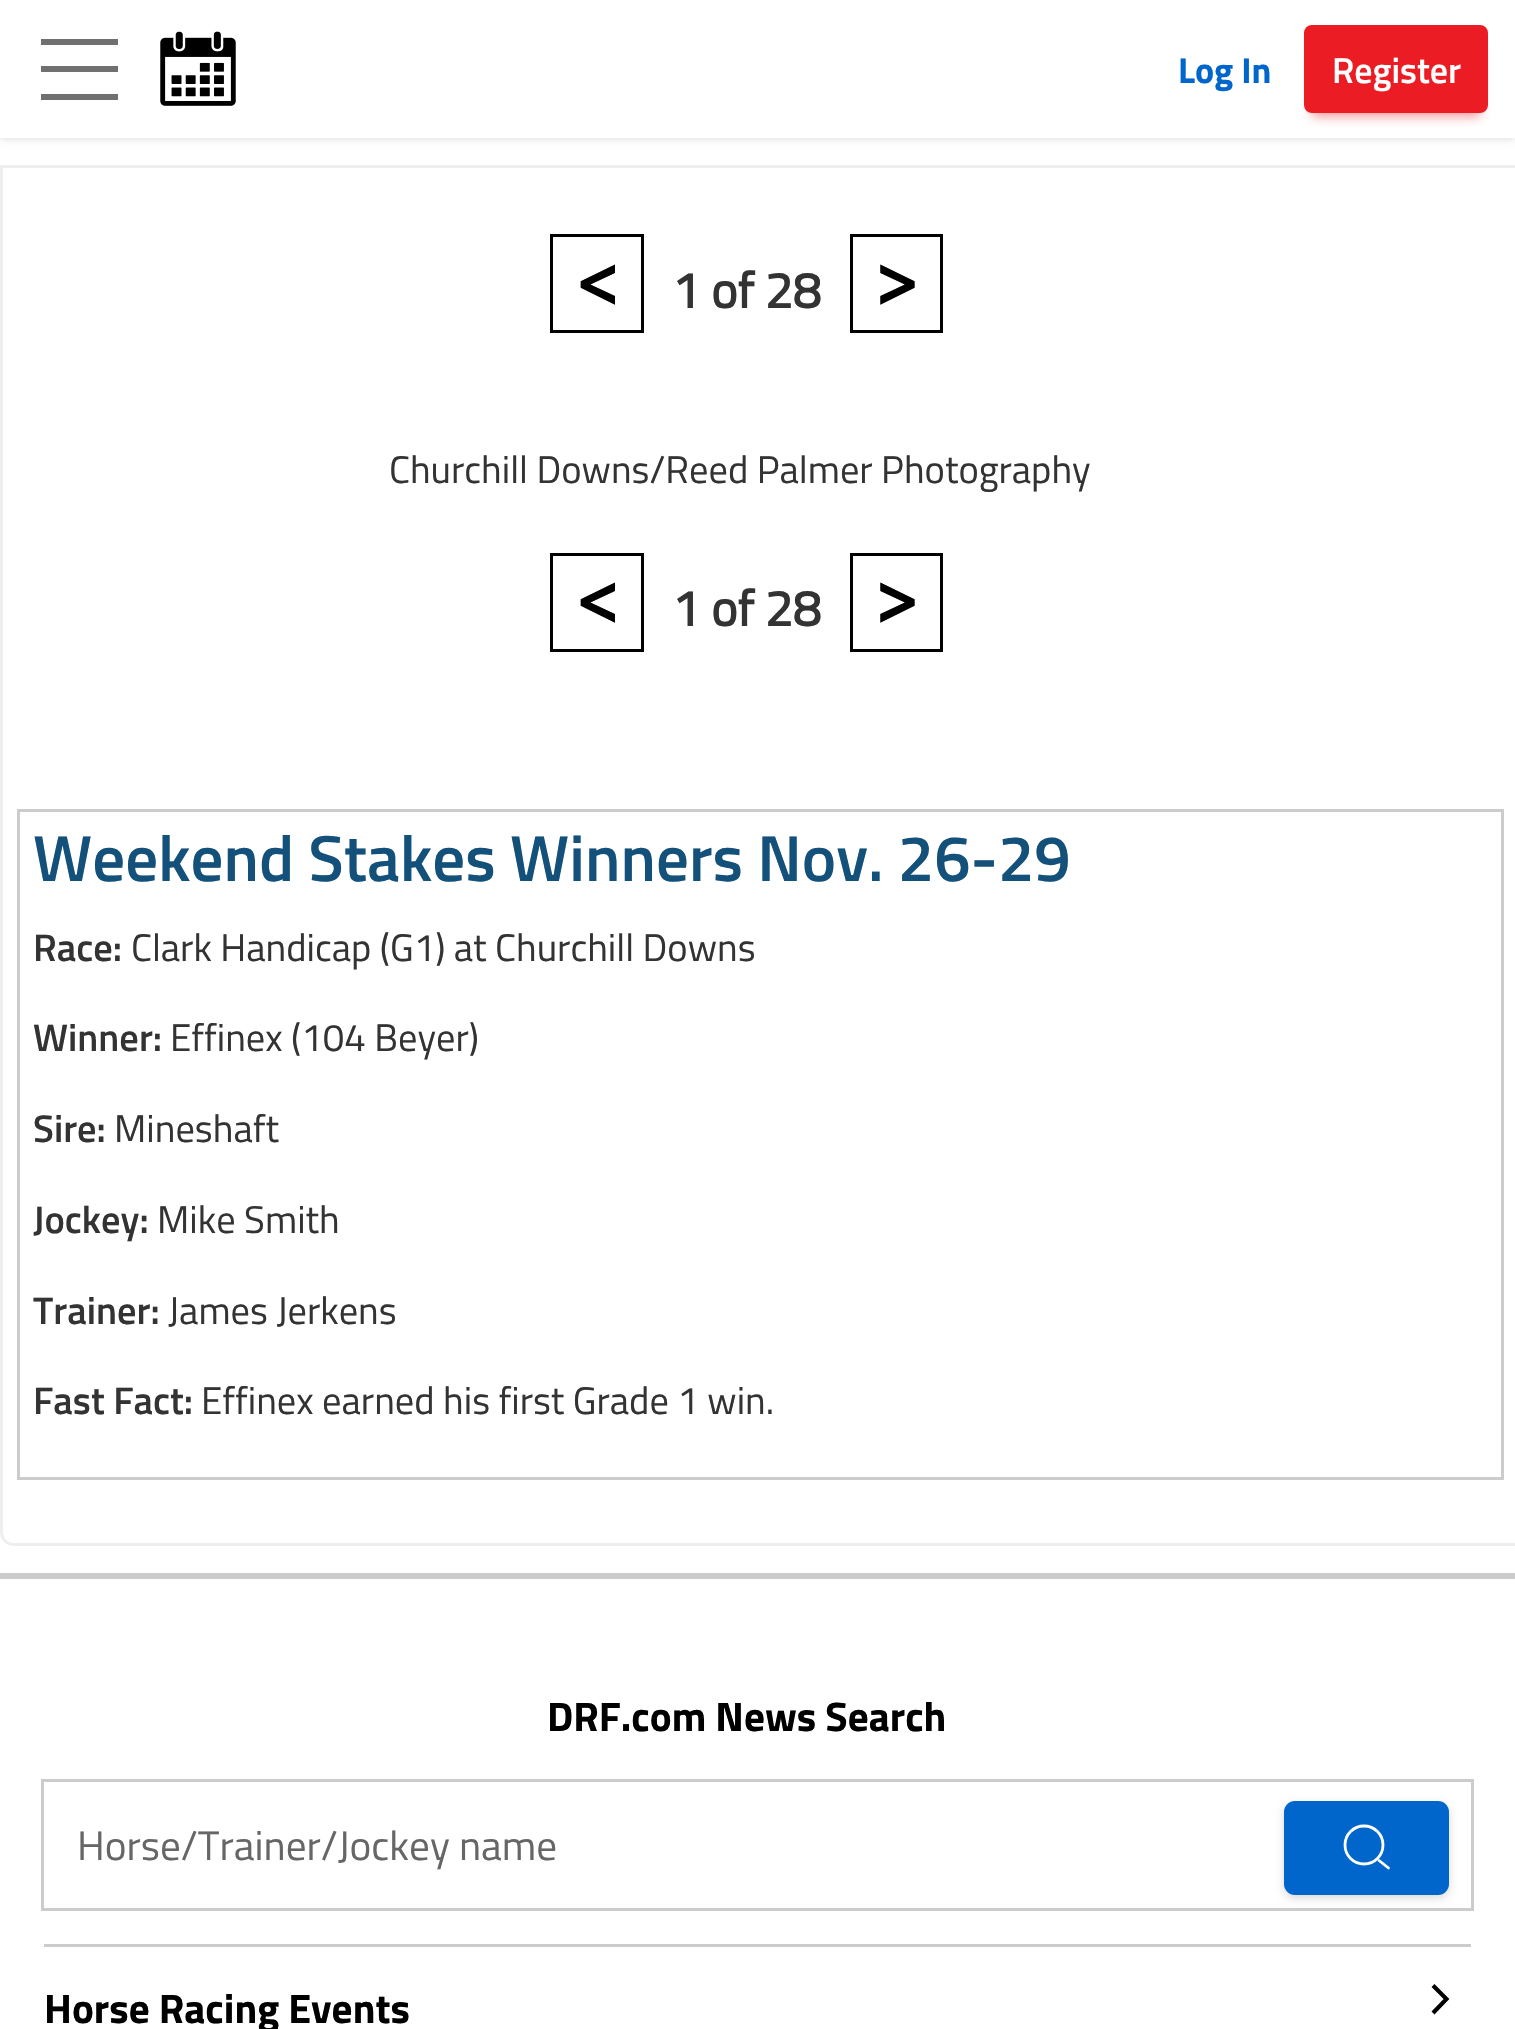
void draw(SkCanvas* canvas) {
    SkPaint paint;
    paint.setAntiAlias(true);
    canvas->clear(0xFFFFFFFF);
    paint.setColor(0x29000000);
    paint.setMaskFilter(SkMaskFilter::MakeBlur(kNormal_SkBlurStyle, 4));
    canvas->drawRect(SkRect::MakeXYWH(0, 0, 1515, 138), paint);
    paint.setMaskFilter(nullptr);
    paint.setColor(0xFFFFFFFF);
    canvas->drawRect(SkRect::MakeXYWH(0, 0, 1515, 138), paint);
    canvas->drawImageRect(SkImages::DeferredFromEncodedData(SkData::MakeFromFileName("img1.png")), SkRect::MakeXYWH(160, 31, 76, 75), SkSamplingOptions());
    paint.setColor(0xFF707070);
    canvas->drawRect(SkRect::MakeXYWH(41, 66, 77, 6), paint);
    canvas->drawRect(SkRect::MakeXYWH(41, 39, 77, 6), paint);
    canvas->drawRect(SkRect::MakeXYWH(41, 94, 77, 6), paint);
    SkFont font1(fontMgr->matchFamilyStyle("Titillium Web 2", SkFontStyle::Bold()), 36);
    font1.setSubpixel(true);
    paint.setColor(0xFF0066CC);
    canvas->drawString("Log In", 1178, 83, font1, paint);
    paint.setColor(0x80EC1C24);
    paint.setMaskFilter(SkMaskFilter::MakeBlur(kNormal_SkBlurStyle, 5.5f));
    canvas->drawRect(SkRect::MakeXYWH(1312, 44, 168, 72), paint);
    paint.setMaskFilter(nullptr);
    paint.setColor(0xFFEC1C24);
    canvas->drawRoundRect(SkRect::MakeXYWH(1304, 25, 184, 88), 8, 8, paint);
    SkFont font2(fontMgr->matchFamilyStyle("Titillium Web", SkFontStyle(600, SkFontStyle::kNormal_Width, SkFontStyle::kUpright_Slant)), 36);
    font2.setSubpixel(true);
    paint.setColor(0xFFFFFFFF);
    canvas->drawString("Register", 1332, 83, font2, paint);
    paint.setStyle(SkPaint::kStroke_Style);
    paint.setStrokeWidth(3);
    paint.setColor(0xFFEEEEEE);
    canvas->drawPath(SkPathBuilder().moveTo(1.5f, 166.5f).lineTo(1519.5f, 166.5f).lineTo(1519.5f, 1544.5f).lineTo(14, 1544.5f).cubicTo(7, 1544.5f, 1.5f, 1539, 1.5f, 1532).close().detach(), paint);
    paint.setColor(0xFF000000);
    canvas->drawRect(SkRect::MakeXYWH(551.5f, 235.5f, 91, 96), paint);
    SkFont font3(fontMgr->matchFamilyStyle("Titillium Web", SkFontStyle::Bold()), 77);
    font3.setSubpixel(true);
    paint.setStyle(SkPaint::kFill_Style);
    canvas->drawString("<", 576, 305, font3, paint);
    SkFont font4(fontMgr->matchFamilyStyle("Titillium Web", SkFontStyle::Bold()), 50);
    font4.setSubpixel(true);
    paint.setColor(0xFF333333);
    canvas->drawString("1 of 28", 672, 308, font4, paint);
    paint.setStyle(SkPaint::kStroke_Style);
    paint.setColor(0xFF000000);
    canvas->drawRect(SkRect::MakeXYWH(851.5f, 235.5f, 90, 96), paint);
    paint.setStyle(SkPaint::kFill_Style);
    canvas->drawString(">", 874, 305, font3, paint);
    SkFont font5(fontMgr->matchFamilyStyle("Titillium Web", SkFontStyle::Normal()), 38.5f);
    font5.setSubpixel(true);
    paint.setColor(0xFF333333);
    canvas->drawString("Churchill Downs/Reed Palmer Photography", 389, 483, font5, paint);
    paint.setStyle(SkPaint::kStroke_Style);
    paint.setColor(0xFF000000);
    canvas->drawRect(SkRect::MakeXYWH(551.5f, 554.5f, 91, 96), paint);
    paint.setStyle(SkPaint::kFill_Style);
    canvas->drawString("<", 576, 623, font3, paint);
    paint.setColor(0xFF333333);
    canvas->drawString("1 of 28", 672, 626, font4, paint);
    paint.setStyle(SkPaint::kStroke_Style);
    paint.setColor(0xFF000000);
    canvas->drawRect(SkRect::MakeXYWH(851.5f, 554.5f, 90, 96), paint);
    paint.setStyle(SkPaint::kFill_Style);
    canvas->drawString(">", 874, 623, font3, paint);
    paint.setStyle(SkPaint::kStroke_Style);
    paint.setColor(0xFFCCCCCC);
    canvas->drawRect(SkRect::MakeXYWH(18.5f, 810.5f, 1484, 668), paint);
    SkFont font6(fontMgr->matchFamilyStyle("Titillium Web", SkFontStyle(600, SkFontStyle::kNormal_Width, SkFontStyle::kUpright_Slant)), 65);
    font6.setSubpixel(true);
    paint.setStyle(SkPaint::kFill_Style);
    paint.setColor(0xFF13507A);
    canvas->drawString("Weekend Stakes Winners Nov. 26-29", 33, 881, font6, paint);
    SkFont font7(fontMgr->matchFamilyStyle("Titillium Web", SkFontStyle(600, SkFontStyle::kNormal_Width, SkFontStyle::kUpright_Slant)), 38.5f);
    font7.setSubpixel(true);
    paint.setColor(0xFF333333);
    canvas->drawString("Race:", 33, 961, font7, paint);
    canvas->drawString("Clark Handicap (G1) at Churchill Downs", 131, 961, font5, paint);
    canvas->drawString("Winner:", 33, 1051, font7, paint);
    canvas->drawString("Effinex (104 Beyer)", 170, 1051, font5, paint);
    canvas->drawString("Sire:", 33, 1142, font7, paint);
    canvas->drawString("Mineshaft", 114, 1142, font5, paint);
    canvas->drawString("Jockey:", 33, 1233, font7, paint);
    canvas->drawString("Mike Smith", 157, 1233, font5, paint);
    canvas->drawString("Trainer:", 33, 1324, font7, paint);
    canvas->drawString("James Jerkens", 168, 1324, font5, paint);
    canvas->drawString("Fast Fact:", 33, 1414, font7, paint);
    canvas->drawString("Effinex earned his first Grade 1 win.", 201, 1414, font5, paint);
    paint.setColor(0xFFCCCCCC);
    canvas->drawRect(SkRect::MakeXYWH(0, 1573, 1515, 6), paint);
    SkFont font8(fontMgr->matchFamilyStyle("Titillium Web 2", SkFontStyle::Bold()), 41.25f);
    font8.setSubpixel(true);
    paint.setColor(0xFF000000);
    canvas->drawString("DRF.com News Search", 547, 1731, font8, paint);
    paint.setStyle(SkPaint::kStroke_Style);
    paint.setColor(0xFFCCCCCC);
    canvas->drawRect(SkRect::MakeXYWH(42.5f, 1780.5f, 1430, 129), paint);
    SkFont font9(fontMgr->matchFamilyStyle("Titillium Web", SkFontStyle::Normal()), 41.25f);
    font9.setSubpixel(true);
    paint.setStyle(SkPaint::kFill_Style);
    paint.setColor(0xFF666666);
    canvas->drawString("Horse/Trainer/Jockey name", 77, 1860, font9, paint);
    paint.setColor(0x26000000);
    paint.setMaskFilter(SkMaskFilter::MakeBlur(kNormal_SkBlurStyle, 4));
    canvas->drawRoundRect(SkRect::MakeXYWH(1284, 1804, 165, 94), 11, 11, paint);
    paint.setMaskFilter(nullptr);
    paint.setColor(0xFF0066CC);
    canvas->drawRoundRect(SkRect::MakeXYWH(1284, 1801, 165, 94), 11, 11, paint);
    paint.setStyle(SkPaint::kStroke_Style);
    paint.setStrokeWidth(2.8f);
    paint.setColor(0xFFFFFFFF);
    canvas->drawCircle(1364, 1845, 19, paint);
    paint.setStrokeCap(SkPaint::kRound_Cap);
    paint.setStrokeJoin(SkPaint::kRound_Join);
    canvas->drawPath(SkPathBuilder().moveTo(1379, 1860.5f).lineTo(1388.5f, 1868).detach(), paint);
    paint.setStyle(SkPaint::kFill_Style);
    paint.setColor(0xFFCCCCCC);
    canvas->drawRect(SkRect::MakeXYWH(44, 1944, 1427, 3), paint);
    paint.setColor(0xFF000000);
    canvas->drawString("Horse Racing Events", 44, 2023, font8, paint);
    paint.setStyle(SkPaint::kStroke_Style);
    paint.setStrokeWidth(4.1f);
    paint.setStrokeCap(SkPaint::kButt_Cap);
    paint.setStrokeJoin(SkPaint::kMiter_Join);
    canvas->drawPath(SkPathBuilder().moveTo(1433, 2013).lineTo(1446.5f, 1999).lineTo(1433, 1985.5f).detach(), paint);
}
